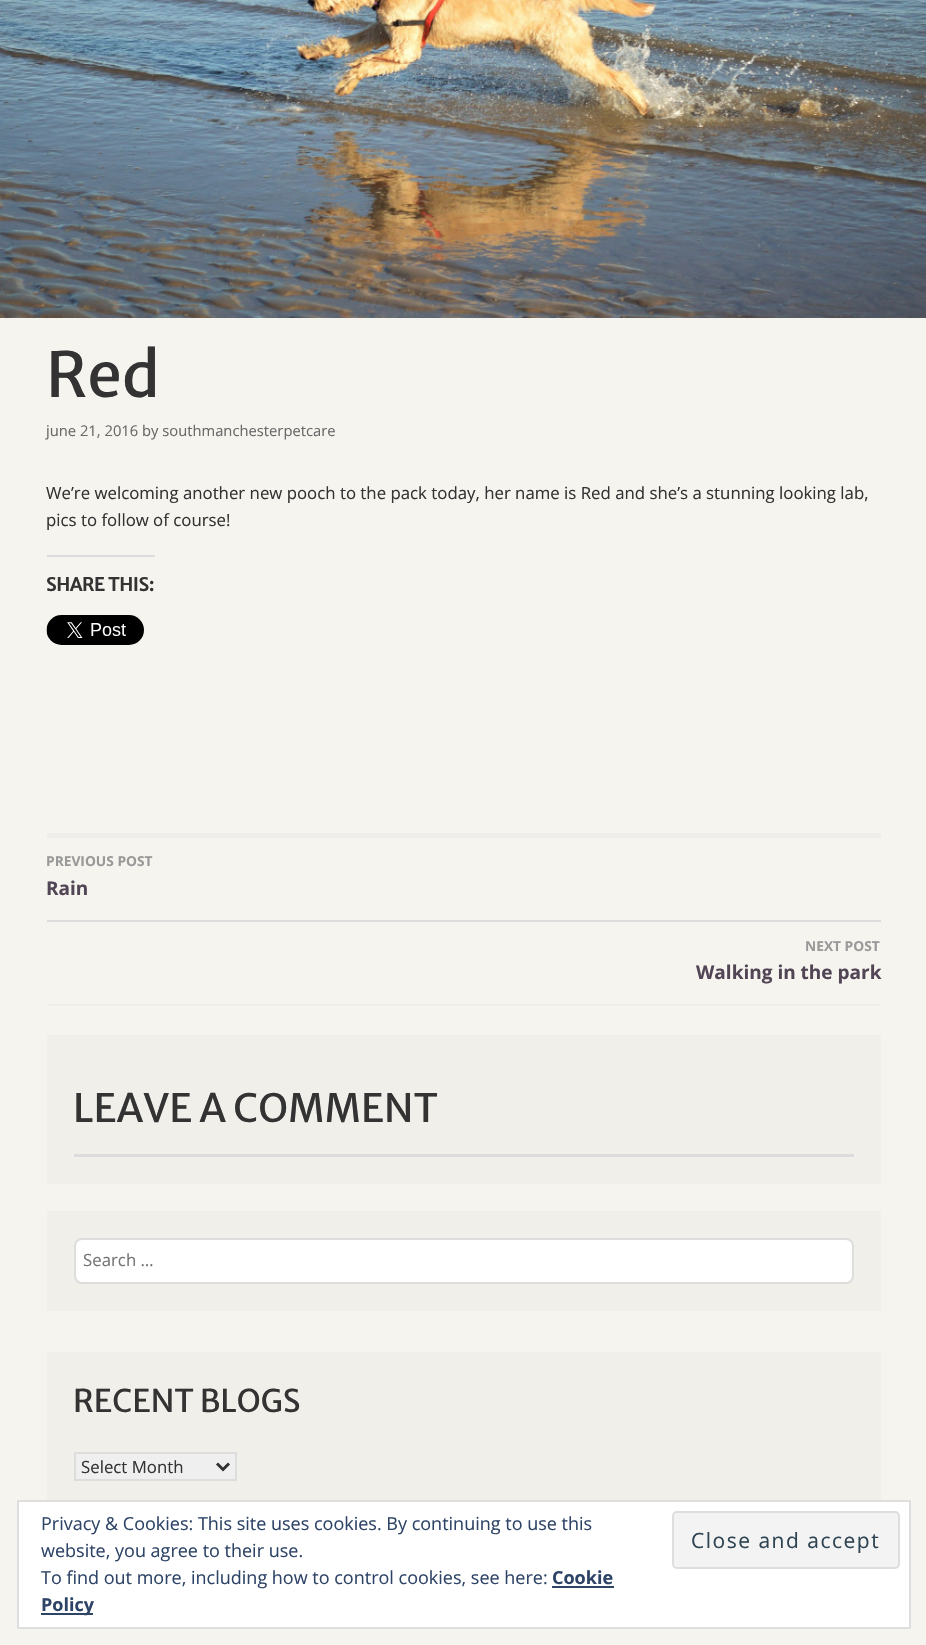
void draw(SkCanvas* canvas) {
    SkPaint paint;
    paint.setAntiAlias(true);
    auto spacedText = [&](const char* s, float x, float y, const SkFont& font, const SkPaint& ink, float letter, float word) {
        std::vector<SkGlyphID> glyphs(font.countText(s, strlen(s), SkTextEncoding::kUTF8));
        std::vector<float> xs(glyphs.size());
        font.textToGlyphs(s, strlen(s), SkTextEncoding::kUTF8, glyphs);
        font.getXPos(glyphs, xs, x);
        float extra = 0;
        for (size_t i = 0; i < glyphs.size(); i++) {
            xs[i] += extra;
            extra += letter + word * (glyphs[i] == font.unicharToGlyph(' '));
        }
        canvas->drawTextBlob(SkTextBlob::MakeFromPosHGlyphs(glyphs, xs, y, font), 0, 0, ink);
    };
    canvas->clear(0xFFF6F4EE);
    canvas->drawImageRect(SkImages::DeferredFromEncodedData(SkData::MakeFromFileName("img1.png")), SkRect::MakeXYWH(0, 0, 926, 318), SkSamplingOptions());
    SkFont font1(fontMgr->matchFamilyStyle("Merriweather Sans", SkFontStyle::Normal()), 62);
    font1.setSubpixel(true);
    paint.setColor(0xFF333333);
    canvas->drawString("Red", 46, 397, font1, paint);
    SkFont font2(fontMgr->matchFamilyStyle("Open Sans", SkFontStyle::Normal()), 14.75f);
    font2.setSubpixel(true);
    paint.setColor(0xFF686868);
    canvas->drawString("june 21, 2016 by southmanchesterpetcare", 46, 436, font2, paint);
    SkFont font3(fontMgr->matchFamilyStyle("Open Sans", SkFontStyle::Normal()), 16.8f);
    font3.setSubpixel(true);
    paint.setColor(0xFF333333);
    canvas->drawString("We’re welcoming another new pooch to the pack today, her name is Red and she’s a stunning looking lab,", 46, 499, font3, paint);
    canvas->drawString("pics to follow of course!", 46, 526, font3, paint);
    paint.setColor(0xFFDCDCDE);
    canvas->drawRect(SkRect::MakeXYWH(47, 555, 108, 2), paint);
    SkFont font4(fontMgr->matchFamilyStyle("Merriweather Sans", SkFontStyle::Bold()), 18);
    font4.setSubpixel(true);
    paint.setColor(0xFF333333);
    canvas->drawString("SHARE THIS:", 46, 591, font4, paint);
    canvas->drawImageRect(SkImages::DeferredFromEncodedData(SkData::MakeFromFileName("img2.png")), SkRect::MakeXYWH(46, 615, 98, 30), SkSamplingOptions());
    paint.setColor(0xFFF0EEEA);
    canvas->drawRect(SkRect::MakeXYWH(47, 833, 834, 5), paint);
    canvas->drawRect(SkRect::MakeXYWH(47, 1004, 834, 2), paint);
    paint.setColor(0xFFDDDDDD);
    canvas->drawRect(SkRect::MakeXYWH(47, 920, 834, 2), paint);
    SkFont font5(fontMgr->matchFamilyStyle("Open Sans", SkFontStyle::Bold()), 13.75f);
    font5.setSubpixel(true);
    paint.setColor(0xFF999999);
    canvas->drawString("PREVIOUS POST", 46, 866, font5, paint);
    SkFont font6(fontMgr->matchFamilyStyle("Open Sans", SkFontStyle::Bold()), 19);
    font6.setSubpixel(true);
    paint.setColor(0xFF524656);
    canvas->drawString("Rain", 46, 895, font6, paint);
    paint.setColor(0xFF999999);
    canvas->drawString("NEXT POST", 805, 951, font5, paint);
    paint.setColor(0xFF524656);
    canvas->drawString("Walking in the park", 696, 979, font6, paint);
    paint.setColor(0xFFF1EFE9);
    canvas->drawRect(SkRect::MakeXYWH(47, 1035, 834, 149), paint);
    SkFont font7(fontMgr->matchFamilyStyle("Merriweather Sans", SkFontStyle::Normal()), 39);
    font7.setSubpixel(true);
    paint.setColor(0xFF333333);
    canvas->drawString("LEAVE A COMMENT", 73, 1122, font7, paint);
    paint.setColor(0xFFDCDCDE);
    canvas->drawRect(SkRect::MakeXYWH(74, 1154, 780, 3), paint);
    paint.setColor(0xFFF1EFE9);
    canvas->drawRect(SkRect::MakeXYWH(47, 1211, 834, 100), paint);
    paint.setColor(0xFFFFFFFF);
    canvas->drawRoundRect(SkRect::MakeXYWH(75, 1239, 778, 44), 7, 7, paint);
    paint.setStyle(SkPaint::kStroke_Style);
    paint.setStrokeWidth(2);
    paint.setColor(0xFFDDDDDD);
    canvas->drawRoundRect(SkRect::MakeXYWH(75, 1239, 778, 44), 7, 7, paint);
    paint.setStyle(SkPaint::kFill_Style);
    paint.setColor(0xFF757575);
    canvas->drawString("Search …", 83, 1266, font3, paint);
    paint.setColor(0xFFF1EFE9);
    canvas->drawRect(SkRect::MakeXYWH(47, 1352, 834, 148), paint);
    SkFont font8(fontMgr->matchFamilyStyle("Merriweather Sans", SkFontStyle::Normal()), 31.25f);
    font8.setSubpixel(true);
    paint.setColor(0xFF333333);
    canvas->drawString("RECENT BLOGS", 73, 1412, font8, paint);
    paint.setColor(0xFFEFEFEF);
    canvas->drawRect(SkRect::MakeXYWH(75, 1453, 161, 27), paint);
    paint.setStyle(SkPaint::kStroke_Style);
    paint.setColor(0xFFDDDDDD);
    canvas->drawRect(SkRect::MakeXYWH(75, 1453, 161, 27), paint);
    paint.setStrokeWidth(3);
    paint.setColor(0xFF333333);
    canvas->drawPath(SkPathBuilder().moveTo(217, 1463.5f).lineTo(223, 1469.5f).lineTo(229, 1463.5f).detach(), paint);
    paint.setStyle(SkPaint::kFill_Style);
    canvas->drawString("Select Month", 81, 1473, font3, paint);
    paint.setColor(0xFFFFFFFF);
    canvas->drawRect(SkRect::MakeXYWH(18, 1501, 892, 127), paint);
    paint.setStyle(SkPaint::kStroke_Style);
    paint.setStrokeWidth(2);
    paint.setColor(0xFFDEDEDE);
    canvas->drawRect(SkRect::MakeXYWH(18, 1501, 892, 127), paint);
    SkFont font9(fontMgr->matchFamilyStyle("Open Sans", SkFontStyle::Normal()), 18);
    font9.setSubpixel(true);
    paint.setStyle(SkPaint::kFill_Style);
    paint.setColor(0xFF2E4467);
    canvas->drawString("Privacy & Cookies: This site uses cookies. By continuing to use this", 41, 1530, font9, paint);
    canvas->drawString("website, you agree to their use.", 41, 1557, font9, paint);
    paint.setColor(0xFFF3F3F3);
    canvas->drawRoundRect(SkRect::MakeXYWH(673, 1512, 226, 56), 4, 4, paint);
    paint.setStyle(SkPaint::kStroke_Style);
    paint.setColor(0xFFDEDEDE);
    canvas->drawRoundRect(SkRect::MakeXYWH(673, 1512, 226, 56), 4, 4, paint);
    SkFont font10(fontMgr->matchFamilyStyle("Open Sans", SkFontStyle::Normal()), 21);
    font10.setSubpixel(true);
    paint.setStyle(SkPaint::kFill_Style);
    paint.setColor(0xFF2E4453);
    spacedText("Close and accept", 691, 1548, font10, paint, 1.5f, 0);
    paint.setColor(0xFF2E4467);
    canvas->drawString("To find out more, including how to control cookies, see here:", 41, 1584, font9, paint);
    SkFont font11(fontMgr->matchFamilyStyle("Open Sans", SkFontStyle::Bold()), 18);
    font11.setSubpixel(true);
    canvas->drawString("Cookie", 552, 1584, font11, paint);
    canvas->drawRect(SkRect::MakeXYWH(552, 1586, 62, 2), paint);
    canvas->drawRect(SkRect::MakeXYWH(41, 1613, 52, 2), paint);
    canvas->drawString("Policy", 41, 1611, font11, paint);
}
